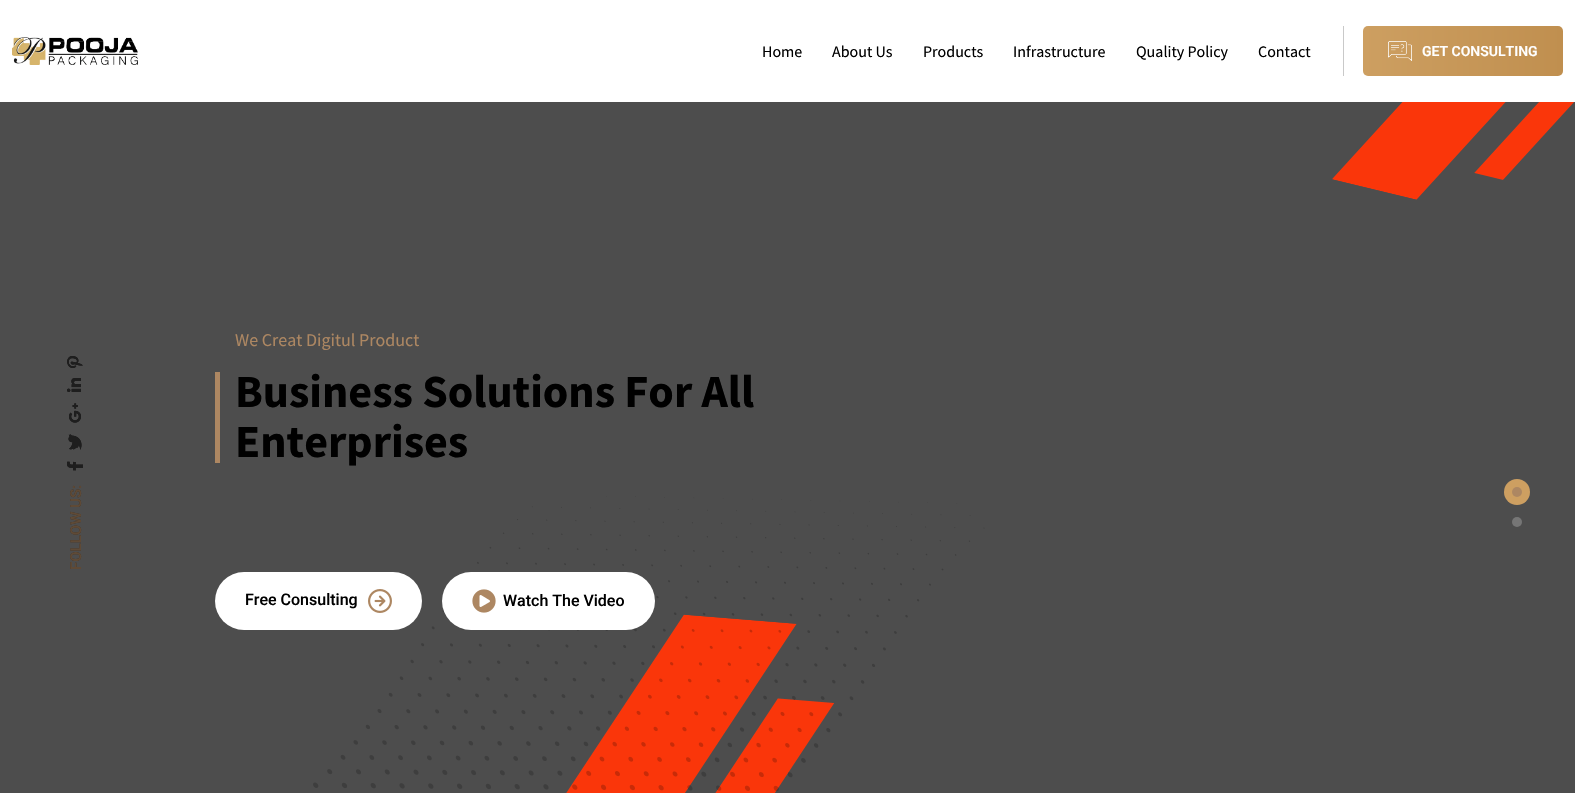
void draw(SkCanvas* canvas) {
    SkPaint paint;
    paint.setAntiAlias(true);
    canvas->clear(0xFFFFFFFF);
    paint.setColor(0xFF4D4D4D);
    canvas->drawRect(SkRect::MakeXYWH(0, 102, 1575, 691), paint);
    canvas->drawImageRect(SkImages::DeferredFromEncodedData(SkData::MakeFromFileName("img1.png")), SkRect::MakeXYWH(12, 37, 126, 28), SkSamplingOptions());
    SkFont font1(fontMgr->matchFamilyStyle("Source Sans Pro", SkFontStyle::Normal()), 16);
    font1.setSubpixel(true);
    paint.setColor(0xFF000000);
    canvas->drawString("Home", 762, 57, font1, paint);
    canvas->drawString("About Us", 832, 57, font1, paint);
    canvas->drawString("Products", 923, 57, font1, paint);
    canvas->drawString("Infrastructure", 1013, 57, font1, paint);
    canvas->drawString("Quality Policy", 1136, 57, font1, paint);
    canvas->drawString("Contact", 1258, 57, font1, paint);
    paint.setColor(0xFFC9C9C9);
    canvas->drawRect(SkRect::MakeXYWH(1343, 26, 1, 50), paint);
    {
        const SkColor colors[] = {0xFFCD9F61, 0xFFC08F4F};
        const float stops[] = {0, 1};
        const SkPoint ends[] = {{1363, 51}, {1563, 51}};
        paint.setShader(SkGradientShader::MakeLinear(ends, colors, stops, 2, SkTileMode::kClamp));
        paint.setAlpha(255);
    }
    canvas->drawRoundRect(SkRect::MakeXYWH(1363, 26, 200, 50), 5, 5, paint);
    canvas->drawImageRect(SkImages::DeferredFromEncodedData(SkData::MakeFromFileName("img2.png")), SkRect::MakeXYWH(1388, 41, 24, 20), SkSamplingOptions());
    SkFont font2(fontMgr->matchFamilyStyle("Roboto", SkFontStyle(600, SkFontStyle::kNormal_Width, SkFontStyle::kUpright_Slant)), 14);
    font2.setSubpixel(true);
    paint.setShader(nullptr);
    paint.setColor(0xFFFFFFFF);
    canvas->drawString("GET CONSULTING", 1422, 56, font2, paint);
    canvas->drawImageRect(SkImages::DeferredFromEncodedData(SkData::MakeFromFileName("img3.png")), SkRect::MakeXYWH(1332, 102, 242, 98), SkSamplingOptions());
    canvas->drawImageRect(SkImages::DeferredFromEncodedData(SkData::MakeFromFileName("img12.png")), SkRect::MakeXYWH(67, 356, 16, 12), SkSamplingOptions());
    canvas->drawImageRect(SkImages::DeferredFromEncodedData(SkData::MakeFromFileName("img4.png")), SkRect::MakeXYWH(67, 356, 16, 12), SkSamplingOptions());
    canvas->drawImageRect(SkImages::DeferredFromEncodedData(SkData::MakeFromFileName("img13.png")), SkRect::MakeXYWH(67, 378, 14, 14), SkSamplingOptions());
    canvas->drawImageRect(SkImages::DeferredFromEncodedData(SkData::MakeFromFileName("img5.png")), SkRect::MakeXYWH(67, 378, 14, 14), SkSamplingOptions());
    canvas->drawImageRect(SkImages::DeferredFromEncodedData(SkData::MakeFromFileName("img14.png")), SkRect::MakeXYWH(69, 403, 12, 20), SkSamplingOptions());
    canvas->drawImageRect(SkImages::DeferredFromEncodedData(SkData::MakeFromFileName("img6.png")), SkRect::MakeXYWH(69, 403, 12, 20), SkSamplingOptions());
    canvas->drawImageRect(SkImages::DeferredFromEncodedData(SkData::MakeFromFileName("img15.png")), SkRect::MakeXYWH(68, 434, 14, 16), SkSamplingOptions());
    canvas->drawImageRect(SkImages::DeferredFromEncodedData(SkData::MakeFromFileName("img7.png")), SkRect::MakeXYWH(68, 434, 14, 16), SkSamplingOptions());
    canvas->drawImageRect(SkImages::DeferredFromEncodedData(SkData::MakeFromFileName("img16.png")), SkRect::MakeXYWH(67, 461, 16, 10), SkSamplingOptions());
    canvas->drawImageRect(SkImages::DeferredFromEncodedData(SkData::MakeFromFileName("img8.png")), SkRect::MakeXYWH(67, 461, 16, 10), SkSamplingOptions());
    SkFont font3(fontMgr->matchFamilyStyle("Roboto", SkFontStyle(600, SkFontStyle::kNormal_Width, SkFontStyle::kUpright_Slant)), 15);
    font3.setSubpixel(true);
    paint.setColor(0xFF34291E);
    canvas->save();
    canvas->rotate(-90, 81, 570);
    canvas->drawString("FOLLOW US:", 81, 570, font3, paint);
    canvas->restore();
    paint.setColor(0xFF5F4A36);
    canvas->save();
    canvas->rotate(-90, 81, 570);
    canvas->drawString("FOLLOW US:", 81, 570, font3, paint);
    canvas->restore();
    SkFont font4(fontMgr->matchFamilyStyle("Source Sans Pro", SkFontStyle::Normal()), 18);
    font4.setSubpixel(true);
    paint.setColor(0xFFAD8762);
    canvas->drawString("We Creat Digitul Product", 235, 346, font4, paint);
    canvas->drawRect(SkRect::MakeXYWH(215, 372, 5, 91), paint);
    SkFont font5(fontMgr->matchFamilyStyle("Source Sans Pro", SkFontStyle::Bold()), 46);
    font5.setSubpixel(true);
    paint.setColor(0xFF000000);
    canvas->drawString("Business Solutions For All", 235, 407, font5, paint);
    canvas->drawString("Enterprises", 235, 457, font5, paint);
    canvas->drawImageRect(SkImages::DeferredFromEncodedData(SkData::MakeFromFileName("img11.png")), SkRect::MakeXYWH(313, 496, 672, 297), SkSamplingOptions());
    paint.setColor(0xFFFFFFFF);
    canvas->drawRoundRect(SkRect::MakeXYWH(215, 572, 207, 58), 29, 29, paint);
    SkFont font6(fontMgr->matchFamilyStyle("Roboto", SkFontStyle(500, SkFontStyle::kNormal_Width, SkFontStyle::kUpright_Slant)), 16);
    font6.setSubpixel(true);
    paint.setColor(0xFF000000);
    canvas->drawString("Free Consulting", 245, 605, font6, paint);
    canvas->drawImageRect(SkImages::DeferredFromEncodedData(SkData::MakeFromFileName("img9.png")), SkRect::MakeXYWH(368, 589, 24, 24), SkSamplingOptions());
    paint.setColor(0xFFFFFFFF);
    canvas->drawRoundRect(SkRect::MakeXYWH(442, 572, 213, 58), 29, 29, paint);
    canvas->drawImageRect(SkImages::DeferredFromEncodedData(SkData::MakeFromFileName("img10.png")), SkRect::MakeXYWH(472, 589, 24, 24), SkSamplingOptions());
    paint.setColor(0xFF000000);
    canvas->drawString("Watch The Video", 503, 606, font6, paint);
    paint.setColor(0xFFCD9F61);
    canvas->drawCircle(1517, 492, 13, paint);
    paint.setColor(0xFFAD8762);
    canvas->drawCircle(1517, 492, 5, paint);
    paint.setColor(0xFF767676);
    canvas->drawCircle(1517, 522, 5, paint);
}
